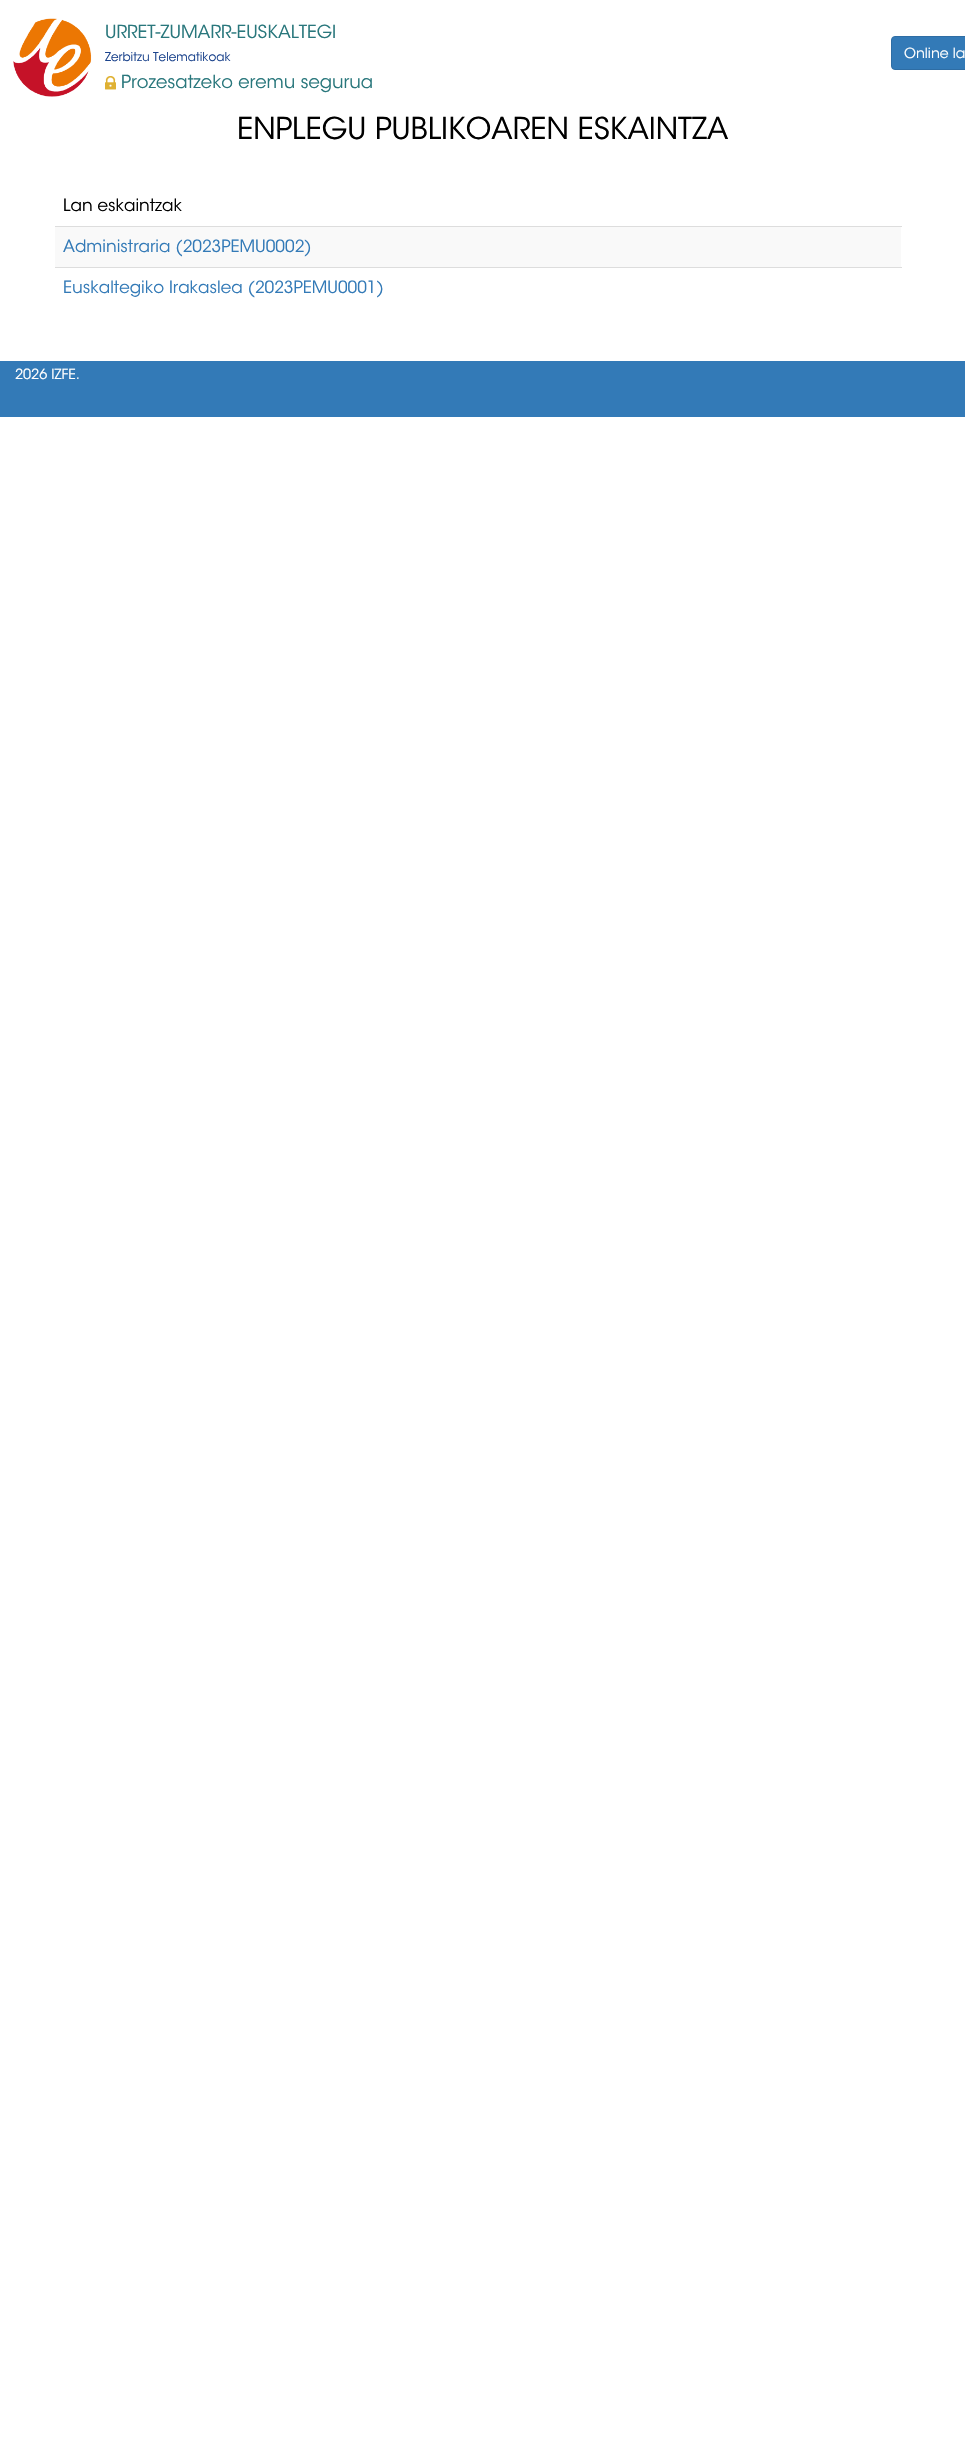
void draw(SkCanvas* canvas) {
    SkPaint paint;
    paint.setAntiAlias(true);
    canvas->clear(0xFFFFFFFF);
    canvas->drawImageRect(SkImages::DeferredFromEncodedData(SkData::MakeFromFileName("img1.png")), SkRect::MakeXYWH(13, 18, 79, 79), SkSamplingOptions());
    SkFont font1(fontMgr->matchFamilyStyle("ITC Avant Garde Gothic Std", SkFontStyle(300, SkFontStyle::kNormal_Width, SkFontStyle::kUpright_Slant)), 18);
    font1.setSubpixel(true);
    paint.setColor(0xFF29777C);
    canvas->drawString("URRET-ZUMARR-EUSKALTEGI", 105, 38, font1, paint);
    SkFont font2(fontMgr->matchFamilyStyle("ITC Avant Garde Gothic Std", SkFontStyle(300, SkFontStyle::kNormal_Width, SkFontStyle::kUpright_Slant)), 12);
    font2.setSubpixel(true);
    paint.setColor(0xFF1C448D);
    canvas->drawString("Zerbitzu Telematikoak", 105, 61, font2, paint);
    canvas->drawImageRect(SkImages::DeferredFromEncodedData(SkData::MakeFromFileName("img2.png")), SkRect::MakeXYWH(105, 76, 11, 14), SkSamplingOptions());
    paint.setColor(0xFF29777C);
    canvas->drawString("Prozesatzeko eremu segurua", 121, 88, font1, paint);
    paint.setColor(0xFF337AB7);
    canvas->drawRoundRect(SkRect::MakeXYWH(891.5f, 36.5f, 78, 33), 3.5f, 3.5f, paint);
    paint.setStyle(SkPaint::kStroke_Style);
    paint.setStrokeWidth(1);
    paint.setColor(0xFF2E6DA4);
    canvas->drawRoundRect(SkRect::MakeXYWH(891.5f, 36.5f, 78, 33), 3.5f, 3.5f, paint);
    SkFont font3(fontMgr->matchFamilyStyle("ITC Avant Garde Gothic Std", SkFontStyle(300, SkFontStyle::kNormal_Width, SkFontStyle::kUpright_Slant)), 14);
    font3.setSubpixel(true);
    paint.setStyle(SkPaint::kFill_Style);
    paint.setColor(0xFFFFFFFF);
    canvas->drawString("Online la", 904, 58, font3, paint);
    SkFont font4(fontMgr->matchFamilyStyle("ITC Avant Garde Gothic Std", SkFontStyle(300, SkFontStyle::kNormal_Width, SkFontStyle::kUpright_Slant)), 30);
    font4.setSubpixel(true);
    paint.setColor(0xFF000000);
    canvas->drawString("ENPLEGU PUBLIKOAREN ESKAINTZA", 237, 139, font4, paint);
    SkFont font5(fontMgr->matchFamilyStyle("ITC Avant Garde Gothic Std", SkFontStyle(300, SkFontStyle::kNormal_Width, SkFontStyle::kUpright_Slant)), 16.75f);
    font5.setSubpixel(true);
    canvas->drawString("Lan eskaintzak", 63, 211, font5, paint);
    paint.setColor(0xFFF9F9F9);
    canvas->drawRect(SkRect::MakeXYWH(55, 227, 846, 40), paint);
    paint.setColor(0xFFDDDDDD);
    canvas->drawRect(SkRect::MakeXYWH(55, 226, 847, 1), paint);
    paint.setColor(0xFF337AB7);
    canvas->drawString("Administraria (2023PEMU0002)", 63, 252, font5, paint);
    paint.setColor(0xFFDDDDDD);
    canvas->drawRect(SkRect::MakeXYWH(55, 267, 847, 1), paint);
    paint.setColor(0xFF337AB7);
    canvas->drawString("Euskaltegiko Irakaslea (2023PEMU0001)", 63, 293, font5, paint);
    canvas->drawRect(SkRect::MakeXYWH(0, 361, 965, 56), paint);
    paint.setColor(0xFFFFFFFF);
    canvas->drawString("2026 IZFE.", 15, 379, font3, paint);
}
